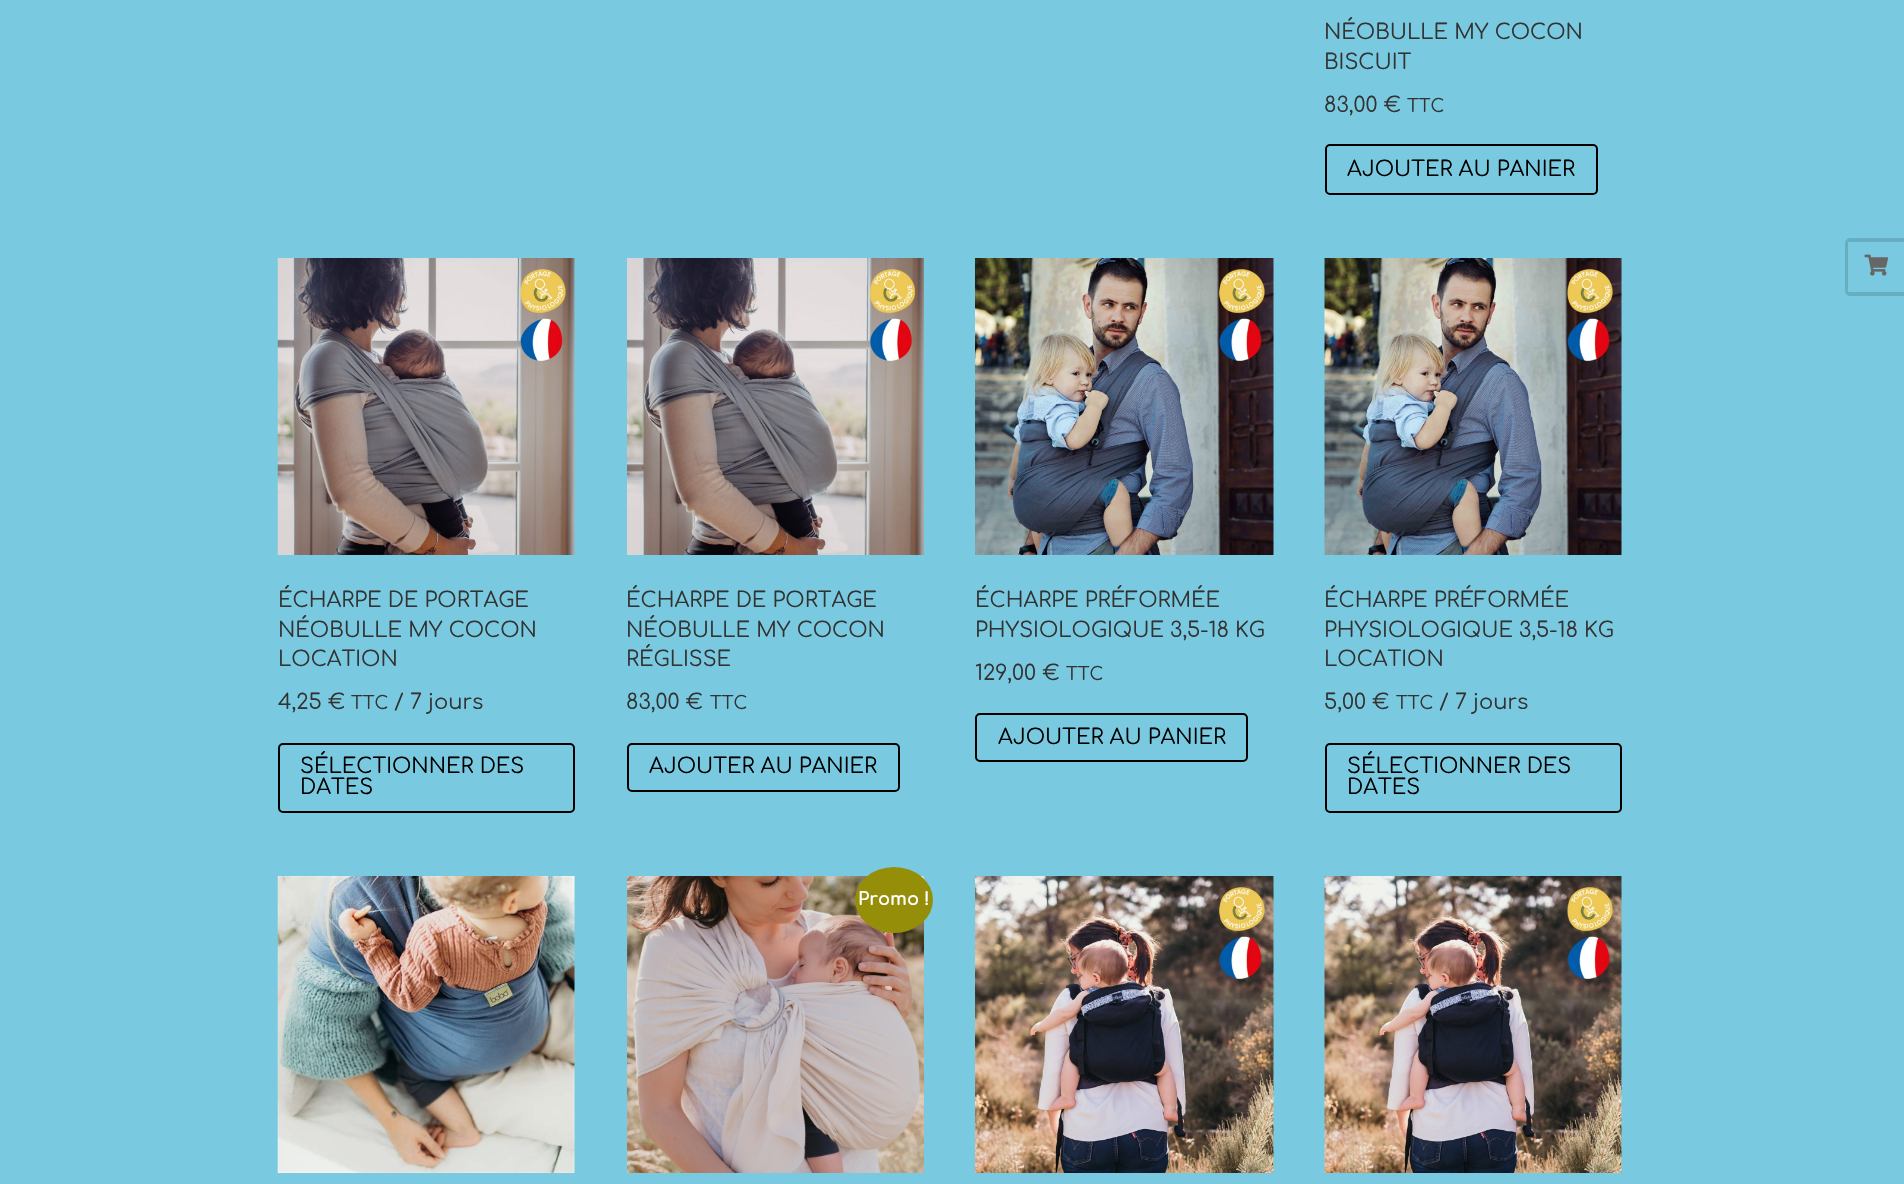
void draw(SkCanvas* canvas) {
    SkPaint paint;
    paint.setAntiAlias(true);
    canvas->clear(0xFF79CAE0);
    SkFont font1(fontMgr->matchFamilyStyle("Comfortaa", SkFontStyle::Normal()), 21);
    font1.setSubpixel(true);
    paint.setColor(0xFF333333);
    canvas->drawString("NÉOBULLE MY COCON", 1324, 39, font1, paint);
    canvas->drawString("BISCUIT", 1324, 69, font1, paint);
    canvas->drawString("83,00 €", 1324, 112, font1, paint);
    SkFont font2(fontMgr->matchFamilyStyle("Comfortaa", SkFontStyle::Normal()), 18);
    font2.setSubpixel(true);
    canvas->drawString("TTC", 1407, 112, font2, paint);
    paint.setStyle(SkPaint::kStroke_Style);
    paint.setStrokeWidth(2);
    paint.setColor(0xFF000000);
    canvas->drawRoundRect(SkRect::MakeXYWH(1326, 145, 271, 49), 4, 4, paint);
    paint.setStyle(SkPaint::kFill_Style);
    canvas->drawString("AJOUTER AU PANIER", 1347, 176, font1, paint);
    canvas->drawImageRect(SkImages::DeferredFromEncodedData(SkData::MakeFromFileName("img1.png")), SkRect::MakeXYWH(277, 258, 298, 297), SkSamplingOptions());
    paint.setColor(0xFF333333);
    canvas->drawString("ÉCHARPE DE PORTAGE", 278, 607, font1, paint);
    canvas->drawString("NÉOBULLE MY COCON", 278, 637, font1, paint);
    canvas->drawString("LOCATION", 278, 666, font1, paint);
    canvas->drawString("4,25 €", 278, 709, font1, paint);
    canvas->drawString("TTC", 351, 709, font2, paint);
    canvas->drawString("/ 7 jours", 394, 709, font1, paint);
    paint.setStyle(SkPaint::kStroke_Style);
    paint.setColor(0xFF000000);
    canvas->drawRoundRect(SkRect::MakeXYWH(279, 744, 295, 68), 4, 4, paint);
    paint.setStyle(SkPaint::kFill_Style);
    canvas->drawString("SÉLECTIONNER DES", 300, 773, font1, paint);
    canvas->drawString("DATES", 300, 794, font1, paint);
    canvas->drawImageRect(SkImages::DeferredFromEncodedData(SkData::MakeFromFileName("img2.png")), SkRect::MakeXYWH(627, 258, 297, 297), SkSamplingOptions());
    paint.setColor(0xFF333333);
    canvas->drawString("ÉCHARPE DE PORTAGE", 626, 607, font1, paint);
    canvas->drawString("NÉOBULLE MY COCON", 626, 637, font1, paint);
    canvas->drawString("RÉGLISSE", 626, 666, font1, paint);
    canvas->drawString("83,00 €", 626, 709, font1, paint);
    canvas->drawString("TTC", 710, 709, font2, paint);
    paint.setStyle(SkPaint::kStroke_Style);
    paint.setColor(0xFF000000);
    canvas->drawRoundRect(SkRect::MakeXYWH(628, 744, 271, 47), 4, 4, paint);
    paint.setStyle(SkPaint::kFill_Style);
    canvas->drawString("AJOUTER AU PANIER", 649, 773, font1, paint);
    canvas->drawImageRect(SkImages::DeferredFromEncodedData(SkData::MakeFromFileName("img3.png")), SkRect::MakeXYWH(975, 258, 299, 297), SkSamplingOptions());
    paint.setColor(0xFF333333);
    canvas->drawString("ÉCHARPE PRÉFORMÉE", 975, 607, font1, paint);
    canvas->drawString("PHYSIOLOGIQUE 3,5-18 KG", 975, 637, font1, paint);
    canvas->drawString("129,00 €", 975, 680, font1, paint);
    canvas->drawString("TTC", 1066, 680, font2, paint);
    paint.setStyle(SkPaint::kStroke_Style);
    paint.setColor(0xFF000000);
    canvas->drawRoundRect(SkRect::MakeXYWH(976, 714, 271, 47), 4, 4, paint);
    paint.setStyle(SkPaint::kFill_Style);
    canvas->drawString("AJOUTER AU PANIER", 998, 744, font1, paint);
    canvas->drawImageRect(SkImages::DeferredFromEncodedData(SkData::MakeFromFileName("img4.png")), SkRect::MakeXYWH(1324, 258, 298, 297), SkSamplingOptions());
    paint.setColor(0xFF333333);
    canvas->drawString("ÉCHARPE PRÉFORMÉE", 1324, 607, font1, paint);
    canvas->drawString("PHYSIOLOGIQUE 3,5-18 KG", 1324, 637, font1, paint);
    canvas->drawString("LOCATION", 1324, 666, font1, paint);
    canvas->drawString("5,00 €", 1324, 709, font1, paint);
    canvas->drawString("TTC", 1396, 709, font2, paint);
    canvas->drawString("/ 7 jours", 1439, 709, font1, paint);
    paint.setStyle(SkPaint::kStroke_Style);
    paint.setColor(0xFF000000);
    canvas->drawRoundRect(SkRect::MakeXYWH(1326, 744, 295, 68), 4, 4, paint);
    paint.setStyle(SkPaint::kFill_Style);
    canvas->drawString("SÉLECTIONNER DES", 1347, 773, font1, paint);
    canvas->drawString("DATES", 1347, 794, font1, paint);
    canvas->drawImageRect(SkImages::DeferredFromEncodedData(SkData::MakeFromFileName("img5.png")), SkRect::MakeXYWH(277, 876, 298, 297), SkSamplingOptions());
    canvas->drawImageRect(SkImages::DeferredFromEncodedData(SkData::MakeFromFileName("img6.png")), SkRect::MakeXYWH(627, 876, 297, 297), SkSamplingOptions());
    paint.setColor(0xFF958E09);
    canvas->drawOval(SkRect::MakeXYWH(855, 867, 78, 66), paint);
    SkFont font3(fontMgr->matchFamilyStyle("Comfortaa", SkFontStyle::Bold()), 18);
    font3.setSubpixel(true);
    paint.setColor(0xFFFFFFFF);
    canvas->drawString("Promo !", 858, 905, font3, paint);
    canvas->drawImageRect(SkImages::DeferredFromEncodedData(SkData::MakeFromFileName("img7.png")), SkRect::MakeXYWH(975, 876, 299, 297), SkSamplingOptions());
    canvas->drawImageRect(SkImages::DeferredFromEncodedData(SkData::MakeFromFileName("img8.png")), SkRect::MakeXYWH(1324, 876, 298, 297), SkSamplingOptions());
    paint.setColor(0xFF68AEC1);
    canvas->drawPath(SkPathBuilder(SkPathFillType::kEvenOdd).moveTo(1850, 238).lineTo(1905, 238).lineTo(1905, 296).lineTo(1850, 296).cubicTo(1847, 296, 1845, 293, 1845, 291).lineTo(1845, 243).cubicTo(1845, 241, 1847, 238, 1850, 238).close().moveTo(1850, 242).lineTo(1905, 242).lineTo(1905, 292).lineTo(1850, 292).cubicTo(1849, 292, 1848, 292, 1848, 291).lineTo(1848, 243).cubicTo(1848, 242, 1849, 242, 1850, 242).close().detach(), paint);
    canvas->drawImageRect(SkImages::DeferredFromEncodedData(SkData::MakeFromFileName("img9.png")), SkRect::MakeXYWH(1864, 254, 25, 22), SkSamplingOptions());
}
